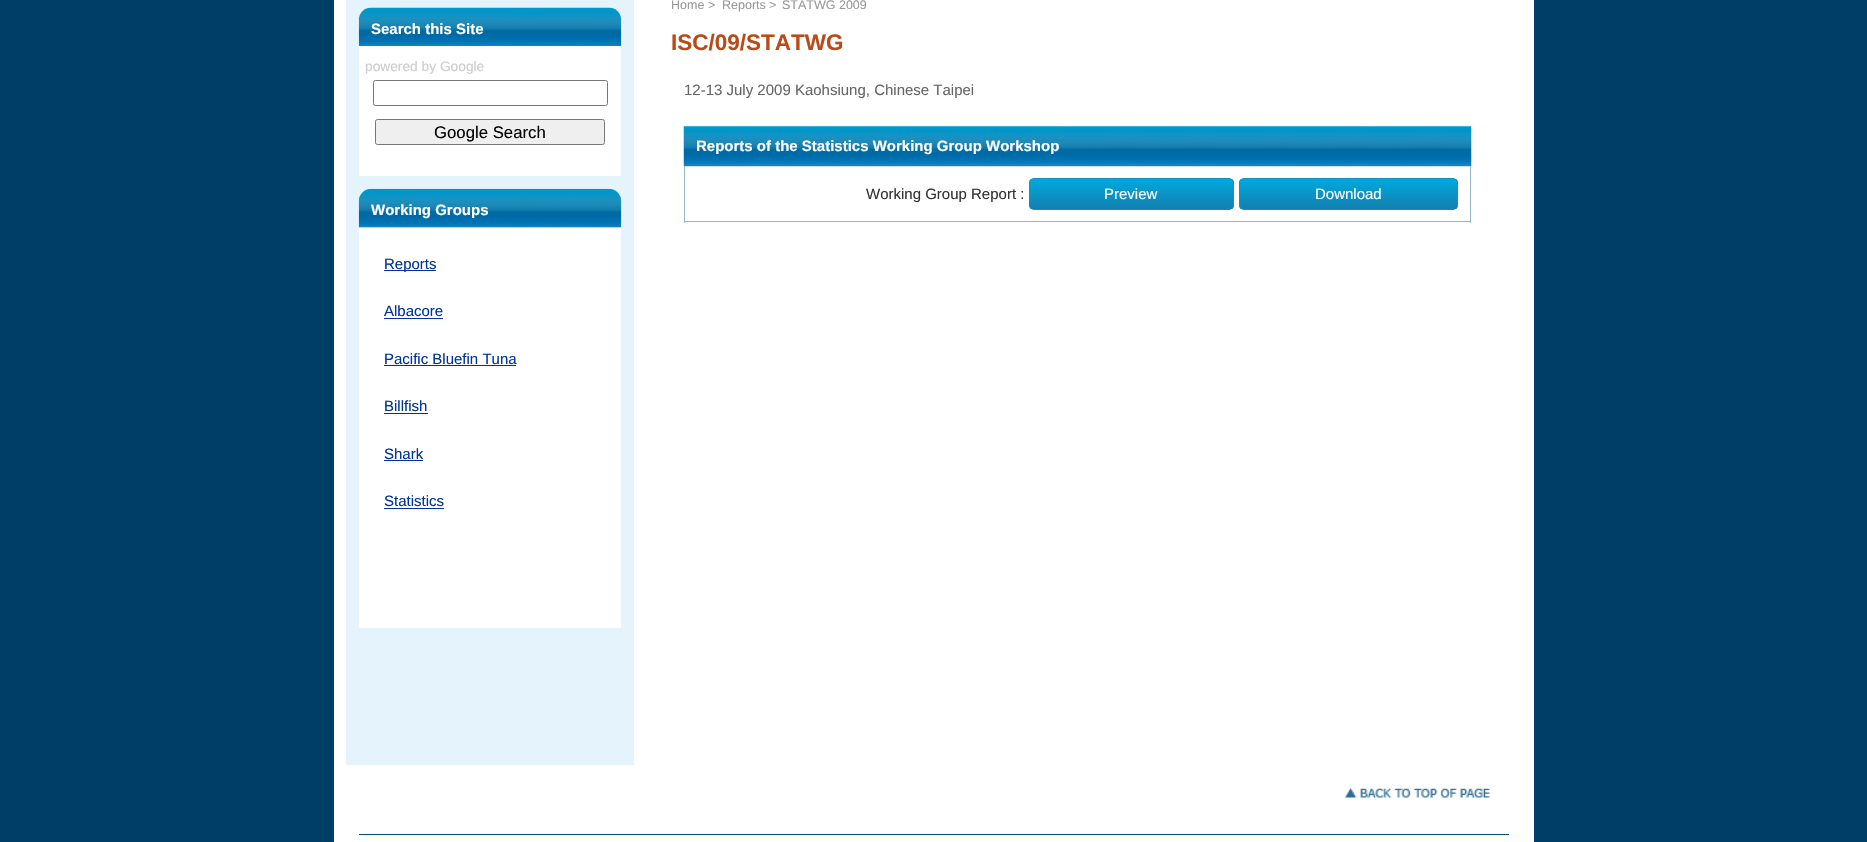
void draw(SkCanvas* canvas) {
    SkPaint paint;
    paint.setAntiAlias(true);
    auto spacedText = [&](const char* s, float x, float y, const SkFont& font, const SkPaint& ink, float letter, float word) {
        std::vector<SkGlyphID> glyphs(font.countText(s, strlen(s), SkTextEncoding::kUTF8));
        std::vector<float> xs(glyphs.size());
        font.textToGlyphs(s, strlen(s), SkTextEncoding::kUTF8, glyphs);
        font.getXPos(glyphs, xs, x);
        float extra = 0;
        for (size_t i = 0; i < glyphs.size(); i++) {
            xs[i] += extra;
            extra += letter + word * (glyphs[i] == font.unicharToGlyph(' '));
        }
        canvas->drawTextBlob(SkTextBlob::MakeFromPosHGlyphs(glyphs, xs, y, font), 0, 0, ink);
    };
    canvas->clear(0xFF003E67);
    paint.setColor(0xFFFFFFFF);
    canvas->drawRect(SkRect::MakeXYWH(334, 0, 1200, 842), paint);
    paint.setColor(0xFFE5F3FC);
    canvas->drawRect(SkRect::MakeXYWH(346, 0, 288, 765), paint);
    canvas->drawImageRect(SkImages::DeferredFromEncodedData(SkData::MakeFromFileName("img1.png")), SkRect::MakeXYWH(358, 7, 264, 39), SkSamplingOptions());
    SkFont font1(fontMgr->matchFamilyStyle("Liberation Sans", SkFontStyle::Bold()), 15);
    font1.setSubpixel(true);
    paint.setColor(0xFFFFFFFF);
    canvas->drawString("Search this Site", 371, 34, font1, paint);
    canvas->drawRect(SkRect::MakeXYWH(359, 46, 262, 130), paint);
    SkFont font2(fontMgr->matchFamilyStyle("Liberation Sans", SkFontStyle::Normal()), 13.75f);
    font2.setSubpixel(true);
    paint.setColor(0xFFCCCCCC);
    canvas->drawString("powered by Google", 365, 71, font2, paint);
    paint.setStyle(SkPaint::kStroke_Style);
    paint.setStrokeWidth(1);
    paint.setColor(0xFF767676);
    canvas->drawRoundRect(SkRect::MakeXYWH(373.5f, 80.5f, 234, 25), 2, 2, paint);
    paint.setStyle(SkPaint::kFill_Style);
    paint.setColor(0xFFEFEFEF);
    canvas->drawRoundRect(SkRect::MakeXYWH(375.5f, 119.5f, 229, 25), 2, 2, paint);
    paint.setStyle(SkPaint::kStroke_Style);
    paint.setColor(0xFF767676);
    canvas->drawRoundRect(SkRect::MakeXYWH(375.5f, 119.5f, 229, 25), 2, 2, paint);
    SkFont font3(fontMgr->matchFamilyStyle("Liberation Sans", SkFontStyle::Normal()), 16.75f);
    font3.setSubpixel(true);
    paint.setStyle(SkPaint::kFill_Style);
    paint.setColor(0xFF000000);
    canvas->drawString("Google Search", 434, 138, font3, paint);
    canvas->drawImageRect(SkImages::DeferredFromEncodedData(SkData::MakeFromFileName("img2.png")), SkRect::MakeXYWH(358, 188, 264, 40), SkSamplingOptions());
    paint.setColor(0xFFFFFFFF);
    canvas->drawString("Working Groups", 371, 215, font1, paint);
    canvas->drawRect(SkRect::MakeXYWH(359, 228, 262, 400), paint);
    paint.setColor(0xFF003399);
    canvas->drawRect(SkRect::MakeXYWH(384, 270, 52, 1), paint);
    SkFont font4(fontMgr->matchFamilyStyle("Liberation Sans", SkFontStyle::Normal()), 15);
    font4.setSubpixel(true);
    canvas->drawString("Reports", 384, 269, font4, paint);
    canvas->drawString("Albacore", 384, 316, font4, paint);
    canvas->drawRect(SkRect::MakeXYWH(384, 318, 59, 1), paint);
    canvas->drawString("Pacific Bluefin Tuna", 384, 364, font4, paint);
    canvas->drawRect(SkRect::MakeXYWH(384, 365, 132, 1), paint);
    canvas->drawString("Billfish", 384, 411, font4, paint);
    canvas->drawRect(SkRect::MakeXYWH(384, 413, 44, 1), paint);
    canvas->drawString("Shark", 384, 459, font4, paint);
    canvas->drawRect(SkRect::MakeXYWH(384, 460, 39, 1), paint);
    canvas->drawString("Statistics", 384, 506, font4, paint);
    canvas->drawRect(SkRect::MakeXYWH(384, 508, 60, 1), paint);
    SkFont font5(fontMgr->matchFamilyStyle("Liberation Sans", SkFontStyle::Normal()), 12.5f);
    font5.setSubpixel(true);
    paint.setColor(0xFF999999);
    canvas->drawString("Home", 671, 9, font5, paint);
    spacedText(">", 708, 9, font5, paint, 6, 0);
    canvas->drawString("Reports", 722, 9, font5, paint);
    spacedText(">", 769, 9, font5, paint, 6, 0);
    canvas->drawString("STATWG 2009", 782, 9, font5, paint);
    SkFont font6(fontMgr->matchFamilyStyle("Liberation Sans", SkFontStyle::Bold()), 22.5f);
    font6.setSubpixel(true);
    paint.setColor(0xFFB84B18);
    canvas->drawString("ISC/09/STATWG", 671, 50, font6, paint);
    paint.setColor(0xFF666666);
    canvas->drawString("12-13 July 2009 Kaohsiung, Chinese Taipei", 684, 95, font4, paint);
    canvas->drawImageRect(SkImages::DeferredFromEncodedData(SkData::MakeFromFileName("img3.png")), SkRect::MakeXYWH(683, 126, 789, 41), SkSamplingOptions());
    paint.setColor(0xFFFFFFFF);
    canvas->drawString("Reports of the Statistics Working Group Workshop", 696, 151, font1, paint);
    paint.setColor(0xFF9AB8CB);
    canvas->drawRect(SkRect::MakeXYWH(1470, 166, 1, 57), paint);
    canvas->drawRect(SkRect::MakeXYWH(684, 221, 787, 1), paint);
    canvas->drawRect(SkRect::MakeXYWH(684, 166, 1, 57), paint);
    paint.setColor(0xFF333333);
    canvas->drawString("Working Group Report :", 866, 199, font4, paint);
    canvas->save();
    canvas->clipPath(SkPathBuilder().moveTo(1034, 178).lineTo(1229, 178).cubicTo(1232, 178, 1234, 180, 1234, 183).lineTo(1234, 205).cubicTo(1234, 208, 1232, 210, 1229, 210).lineTo(1034, 210).cubicTo(1031, 210, 1029, 208, 1029, 205).lineTo(1029, 183).cubicTo(1029, 180, 1031, 178, 1034, 178).close().detach(), true);
    {
        const SkColor colors[] = {0xFF00A9DD, 0xFF137FB0};
        const float stops[] = {0, 1};
        const SkPoint ends[] = {{1131, 179}, {1131, 209}};
        paint.setShader(SkGradientShader::MakeLinear(ends, colors, stops, 2, SkTileMode::kClamp));
        paint.setAlpha(255);
    }
    canvas->drawRect(SkRect::MakeXYWH(1029, 179, 205, 30), paint);
    canvas->restore();
    paint.setStyle(SkPaint::kStroke_Style);
    paint.setShader(nullptr);
    paint.setColor(0xFF1090C3);
    canvas->drawRoundRect(SkRect::MakeXYWH(1029.5f, 178.5f, 204, 31), 4.5f, 4.5f, paint);
    paint.setStyle(SkPaint::kFill_Style);
    paint.setColor(0xFFFFFFFF);
    canvas->drawString("Preview", 1104, 199, font4, paint);
    canvas->save();
    canvas->clipPath(SkPathBuilder().moveTo(1244, 178).lineTo(1453, 178).cubicTo(1456, 178, 1458, 180, 1458, 183).lineTo(1458, 205).cubicTo(1458, 208, 1456, 210, 1453, 210).lineTo(1244, 210).cubicTo(1241, 210, 1239, 208, 1239, 205).lineTo(1239, 183).cubicTo(1239, 180, 1241, 178, 1244, 178).close().detach(), true);
    {
        const SkColor colors[] = {0xFF00A9DD, 0xFF137FB0};
        const float stops[] = {0, 1};
        const SkPoint ends[] = {{1348, 179}, {1348, 209}};
        paint.setShader(SkGradientShader::MakeLinear(ends, colors, stops, 2, SkTileMode::kClamp));
        paint.setAlpha(255);
    }
    canvas->drawRect(SkRect::MakeXYWH(1239, 179, 219, 30), paint);
    canvas->restore();
    paint.setStyle(SkPaint::kStroke_Style);
    paint.setShader(nullptr);
    paint.setColor(0xFF1090C3);
    canvas->drawRoundRect(SkRect::MakeXYWH(1239.5f, 178.5f, 218, 31), 4.5f, 4.5f, paint);
    paint.setStyle(SkPaint::kFill_Style);
    paint.setColor(0xFFFFFFFF);
    canvas->drawString("Download", 1315, 199, font4, paint);
    paint.setColor(0xFF00507A);
    canvas->drawRect(SkRect::MakeXYWH(359, 834, 1150, 1), paint);
    canvas->drawImageRect(SkImages::DeferredFromEncodedData(SkData::MakeFromFileName("img4.png")), SkRect::MakeXYWH(1345, 787, 145, 11), SkSamplingOptions());
}
